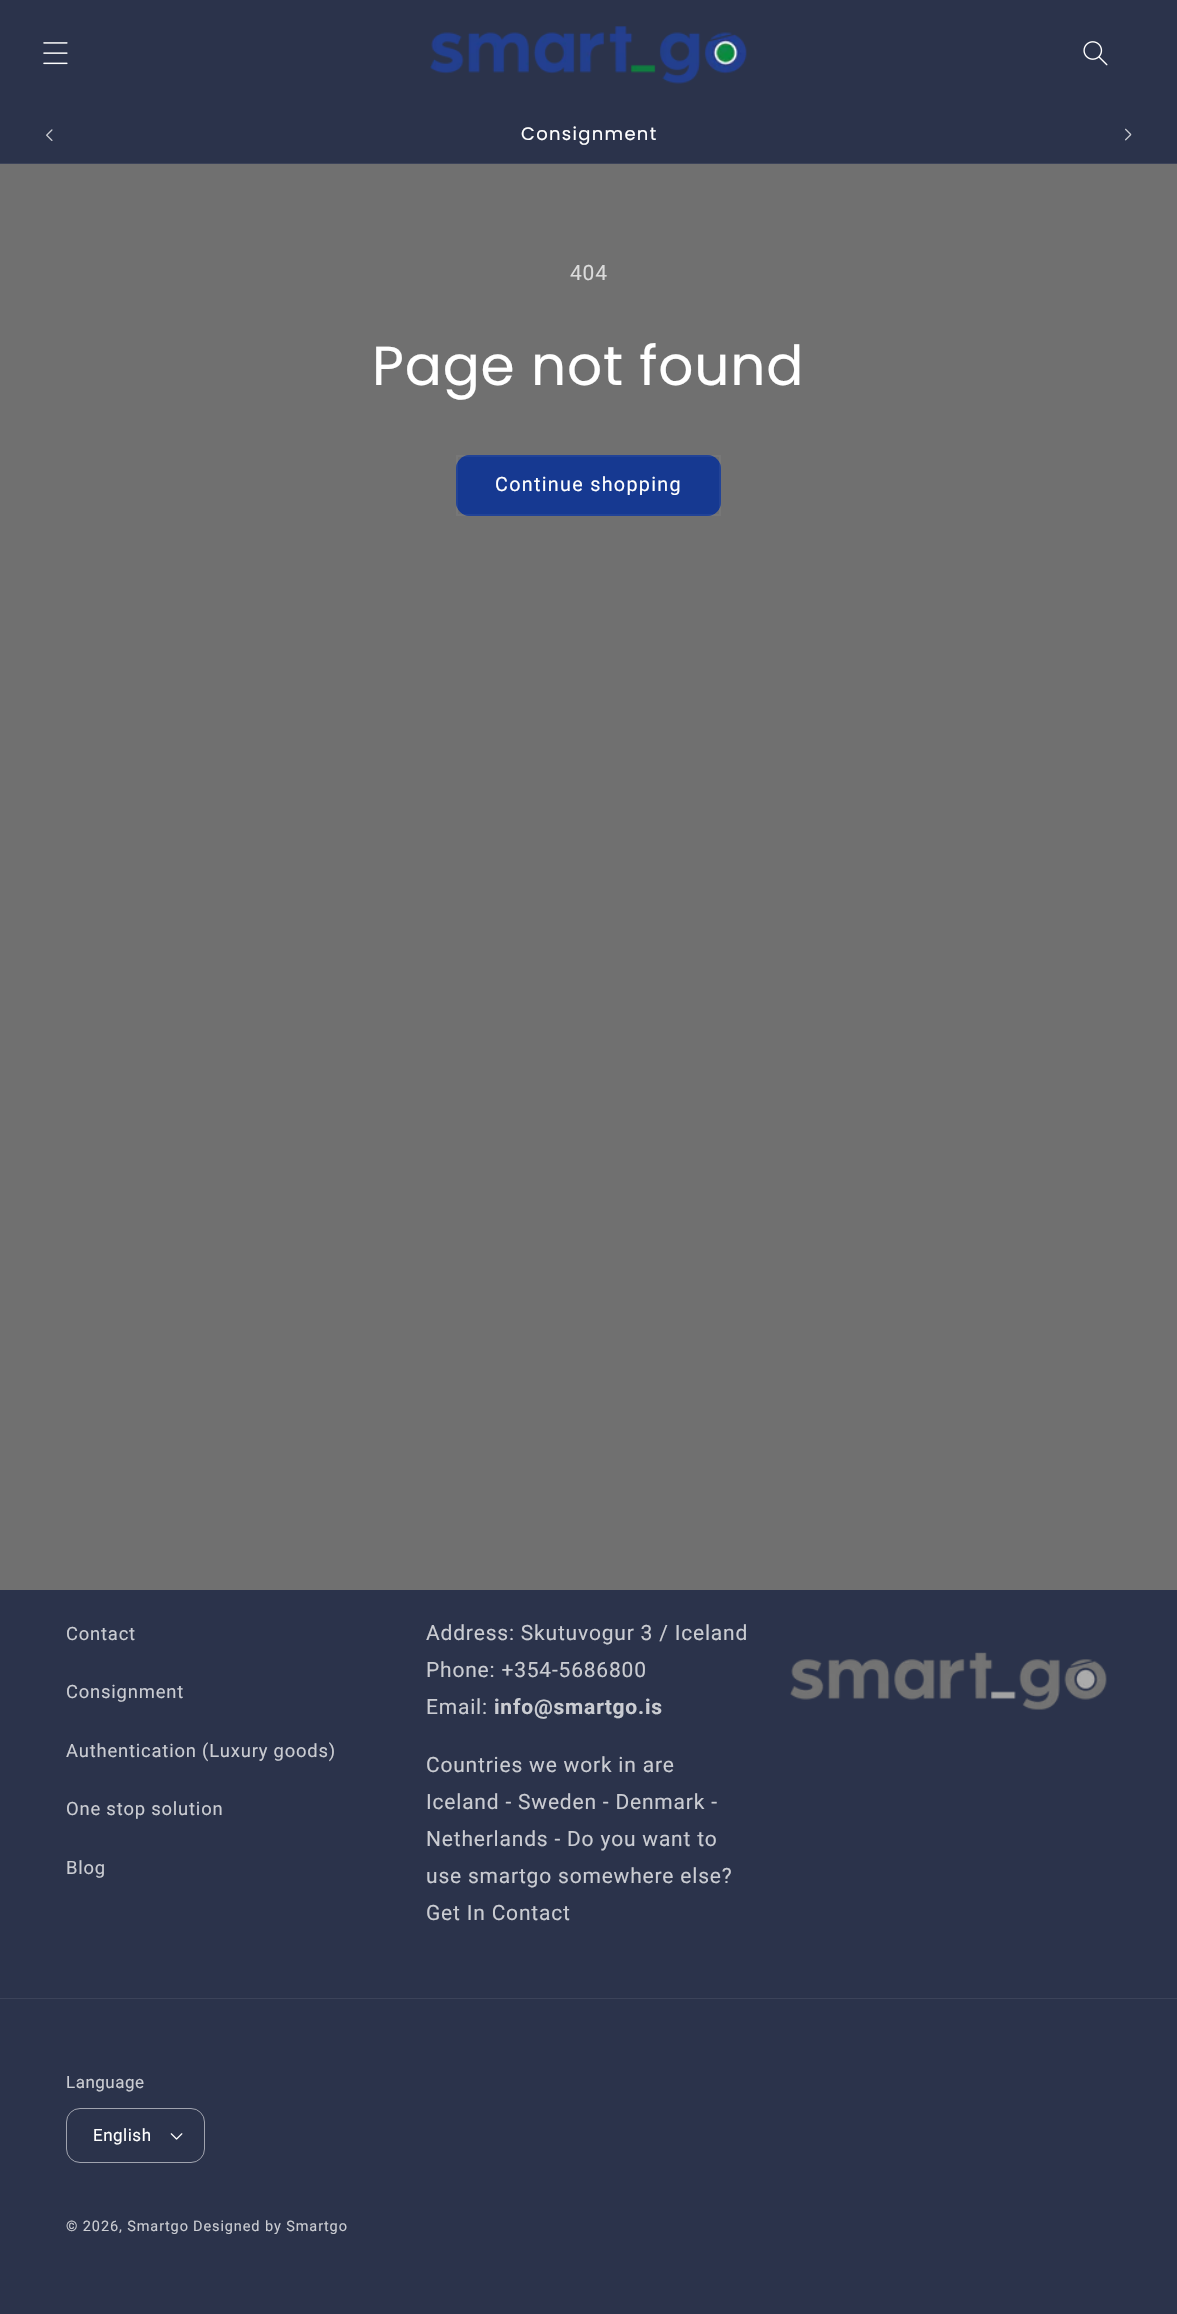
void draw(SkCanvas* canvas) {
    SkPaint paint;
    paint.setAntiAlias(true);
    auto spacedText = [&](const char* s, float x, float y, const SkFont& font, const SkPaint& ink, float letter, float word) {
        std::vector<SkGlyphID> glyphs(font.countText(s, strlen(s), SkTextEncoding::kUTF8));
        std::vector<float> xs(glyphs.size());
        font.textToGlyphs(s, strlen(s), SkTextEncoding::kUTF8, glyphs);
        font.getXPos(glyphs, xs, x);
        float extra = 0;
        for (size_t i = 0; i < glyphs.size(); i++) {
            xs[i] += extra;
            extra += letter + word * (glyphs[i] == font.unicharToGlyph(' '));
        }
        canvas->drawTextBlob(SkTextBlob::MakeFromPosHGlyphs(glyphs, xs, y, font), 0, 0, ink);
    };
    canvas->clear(0xFF707070);
    paint.setColor(0xFF2B334B);
    canvas->drawRect(SkRect::MakeXYWH(0, 0, 1177, 163), paint);
    canvas->drawImageRect(SkImages::DeferredFromEncodedData(SkData::MakeFromFileName("img1.png")), SkRect::MakeXYWH(43, 42, 25, 23), SkSamplingOptions());
    canvas->drawImageRect(SkImages::DeferredFromEncodedData(SkData::MakeFromFileName("img2.png")), SkRect::MakeXYWH(430, 26, 317, 58), SkSamplingOptions());
    canvas->drawImageRect(SkImages::DeferredFromEncodedData(SkData::MakeFromFileName("img3.png")), SkRect::MakeXYWH(1083, 41, 25, 25), SkSamplingOptions());
    paint.setColor(0xFF3C4359);
    canvas->drawRect(SkRect::MakeXYWH(0, 163, 1177, 1), paint);
    canvas->drawImageRect(SkImages::DeferredFromEncodedData(SkData::MakeFromFileName("img4.png")), SkRect::MakeXYWH(46, 129, 7, 12), SkSamplingOptions());
    SkFont font1(fontMgr->matchFamilyStyle("Poppins", SkFontStyle::Normal()), 18);
    font1.setSubpixel(true);
    paint.setColor(0xFFFFFFFF);
    spacedText("Consignment", 521, 140, font1, paint, 1.3f, 0);
    canvas->drawImageRect(SkImages::DeferredFromEncodedData(SkData::MakeFromFileName("img5.png")), SkRect::MakeXYWH(1125, 128, 7, 13), SkSamplingOptions());
    SkFont font2(fontMgr->matchFamilyStyle("Roboto", SkFontStyle::Normal()), 21);
    font2.setSubpixel(true);
    paint.setColor(0xFFDBDBDB);
    spacedText("404", 570, 280, font2, paint, 0.8f, 0);
    SkFont font3(fontMgr->matchFamilyStyle("Poppins", SkFontStyle::Normal()), 55);
    font3.setSubpixel(true);
    paint.setColor(0xFFFFFFFF);
    spacedText("Page not found", 372, 385, font3, paint, 0.8f, 0);
    paint.setColor(0xFF163991);
    canvas->drawRoundRect(SkRect::MakeXYWH(456, 455, 265, 61), 14, 14, paint);
    paint.setStyle(SkPaint::kStroke_Style);
    paint.setStrokeWidth(1);
    canvas->drawRoundRect(SkRect::MakeXYWH(456.5f, 455.5f, 264, 60), 13.5f, 13.5f, paint);
    paint.setStrokeWidth(2);
    paint.setColor(0x0DFFFFFF);
    canvas->drawRect(SkRect::MakeXYWH(457, 456, 263, 59), paint);
    SkFont font4(fontMgr->matchFamilyStyle("Roboto", SkFontStyle::Normal()), 19.75f);
    font4.setSubpixel(true);
    paint.setStyle(SkPaint::kFill_Style);
    paint.setColor(0xFFFFFFFF);
    spacedText("Continue shopping", 495, 491, font4, paint, 1.3f, 0);
    paint.setColor(0xFF2B334B);
    canvas->drawRect(SkRect::MakeXYWH(0, 1590, 1177, 724), paint);
    SkFont font5(fontMgr->matchFamilyStyle("Roboto", SkFontStyle::Normal()), 18.4f);
    font5.setSubpixel(true);
    paint.setColor(0xFFCACCD2);
    spacedText("Contact", 66, 1640, font5, paint, 0.8f, 0);
    spacedText("Consignment", 66, 1698, font5, paint, 0.8f, 0);
    spacedText("Authentication (Luxury goods)", 66, 1757, font5, paint, 0.8f, 0);
    spacedText("One stop solution", 66, 1815, font5, paint, 0.8f, 0);
    spacedText("Blog", 66, 1874, font5, paint, 0.8f, 0);
    spacedText("Address: Skutuvogur 3 / Iceland", 426, 1640, font2, paint, 0.8f, 0);
    spacedText("Phone: +354-5686800", 426, 1677, font2, paint, 0.8f, 0);
    spacedText("Email:", 426, 1714, font2, paint, 0.8f, 0);
    SkFont font6(fontMgr->matchFamilyStyle("Roboto", SkFontStyle::Bold()), 21);
    font6.setSubpixel(true);
    spacedText("info@smartgo.is", 494, 1714, font6, paint, 0.8f, 0);
    spacedText("Countries we work in are", 426, 1772, font2, paint, 0.8f, 0);
    spacedText("Iceland - Sweden - Denmark -", 426, 1809, font2, paint, 0.8f, 0);
    spacedText("Netherlands - Do you want to", 426, 1846, font2, paint, 0.8f, 0);
    spacedText("use smartgo somewhere else?", 426, 1883, font2, paint, 0.8f, 0);
    spacedText("Get In Contact", 426, 1920, font2, paint, 0.8f, 0);
    canvas->drawImageRect(SkImages::DeferredFromEncodedData(SkData::MakeFromFileName("img6.png")), SkRect::MakeXYWH(790, 1652, 317, 58), SkSamplingOptions());
    paint.setColor(0xFF3C4359);
    canvas->drawRect(SkRect::MakeXYWH(0, 1998, 1177, 1), paint);
    SkFont font7(fontMgr->matchFamilyStyle("Roboto", SkFontStyle::Normal()), 17);
    font7.setSubpixel(true);
    paint.setColor(0xFFCACCD2);
    spacedText("Language", 66, 2088, font7, paint, 0.5f, 0);
    canvas->drawImageRect(SkImages::DeferredFromEncodedData(SkData::MakeFromFileName("img7.png")), SkRect::MakeXYWH(170, 2133, 13, 7), SkSamplingOptions());
    paint.setStyle(SkPaint::kStroke_Style);
    paint.setStrokeWidth(1);
    paint.setColor(0xFFA0A3AE);
    canvas->drawRoundRect(SkRect::MakeXYWH(66.5f, 2108.5f, 138, 54), 13.5f, 13.5f, paint);
    paint.setStyle(SkPaint::kFill_Style);
    paint.setColor(0xFFFFFFFF);
    spacedText("English", 93, 2141, font7, paint, 0.5f, 0);
    SkFont font8(fontMgr->matchFamilyStyle("Roboto", SkFontStyle::Normal()), 14.5f);
    font8.setSubpixel(true);
    paint.setColor(0xFFCACCD2);
    spacedText("© 2026, Smartgo", 66, 2231, font8, paint, 0.9f, 0);
    spacedText("Designed by Smartgo", 193, 2231, font8, paint, 0.9f, 0);
}
